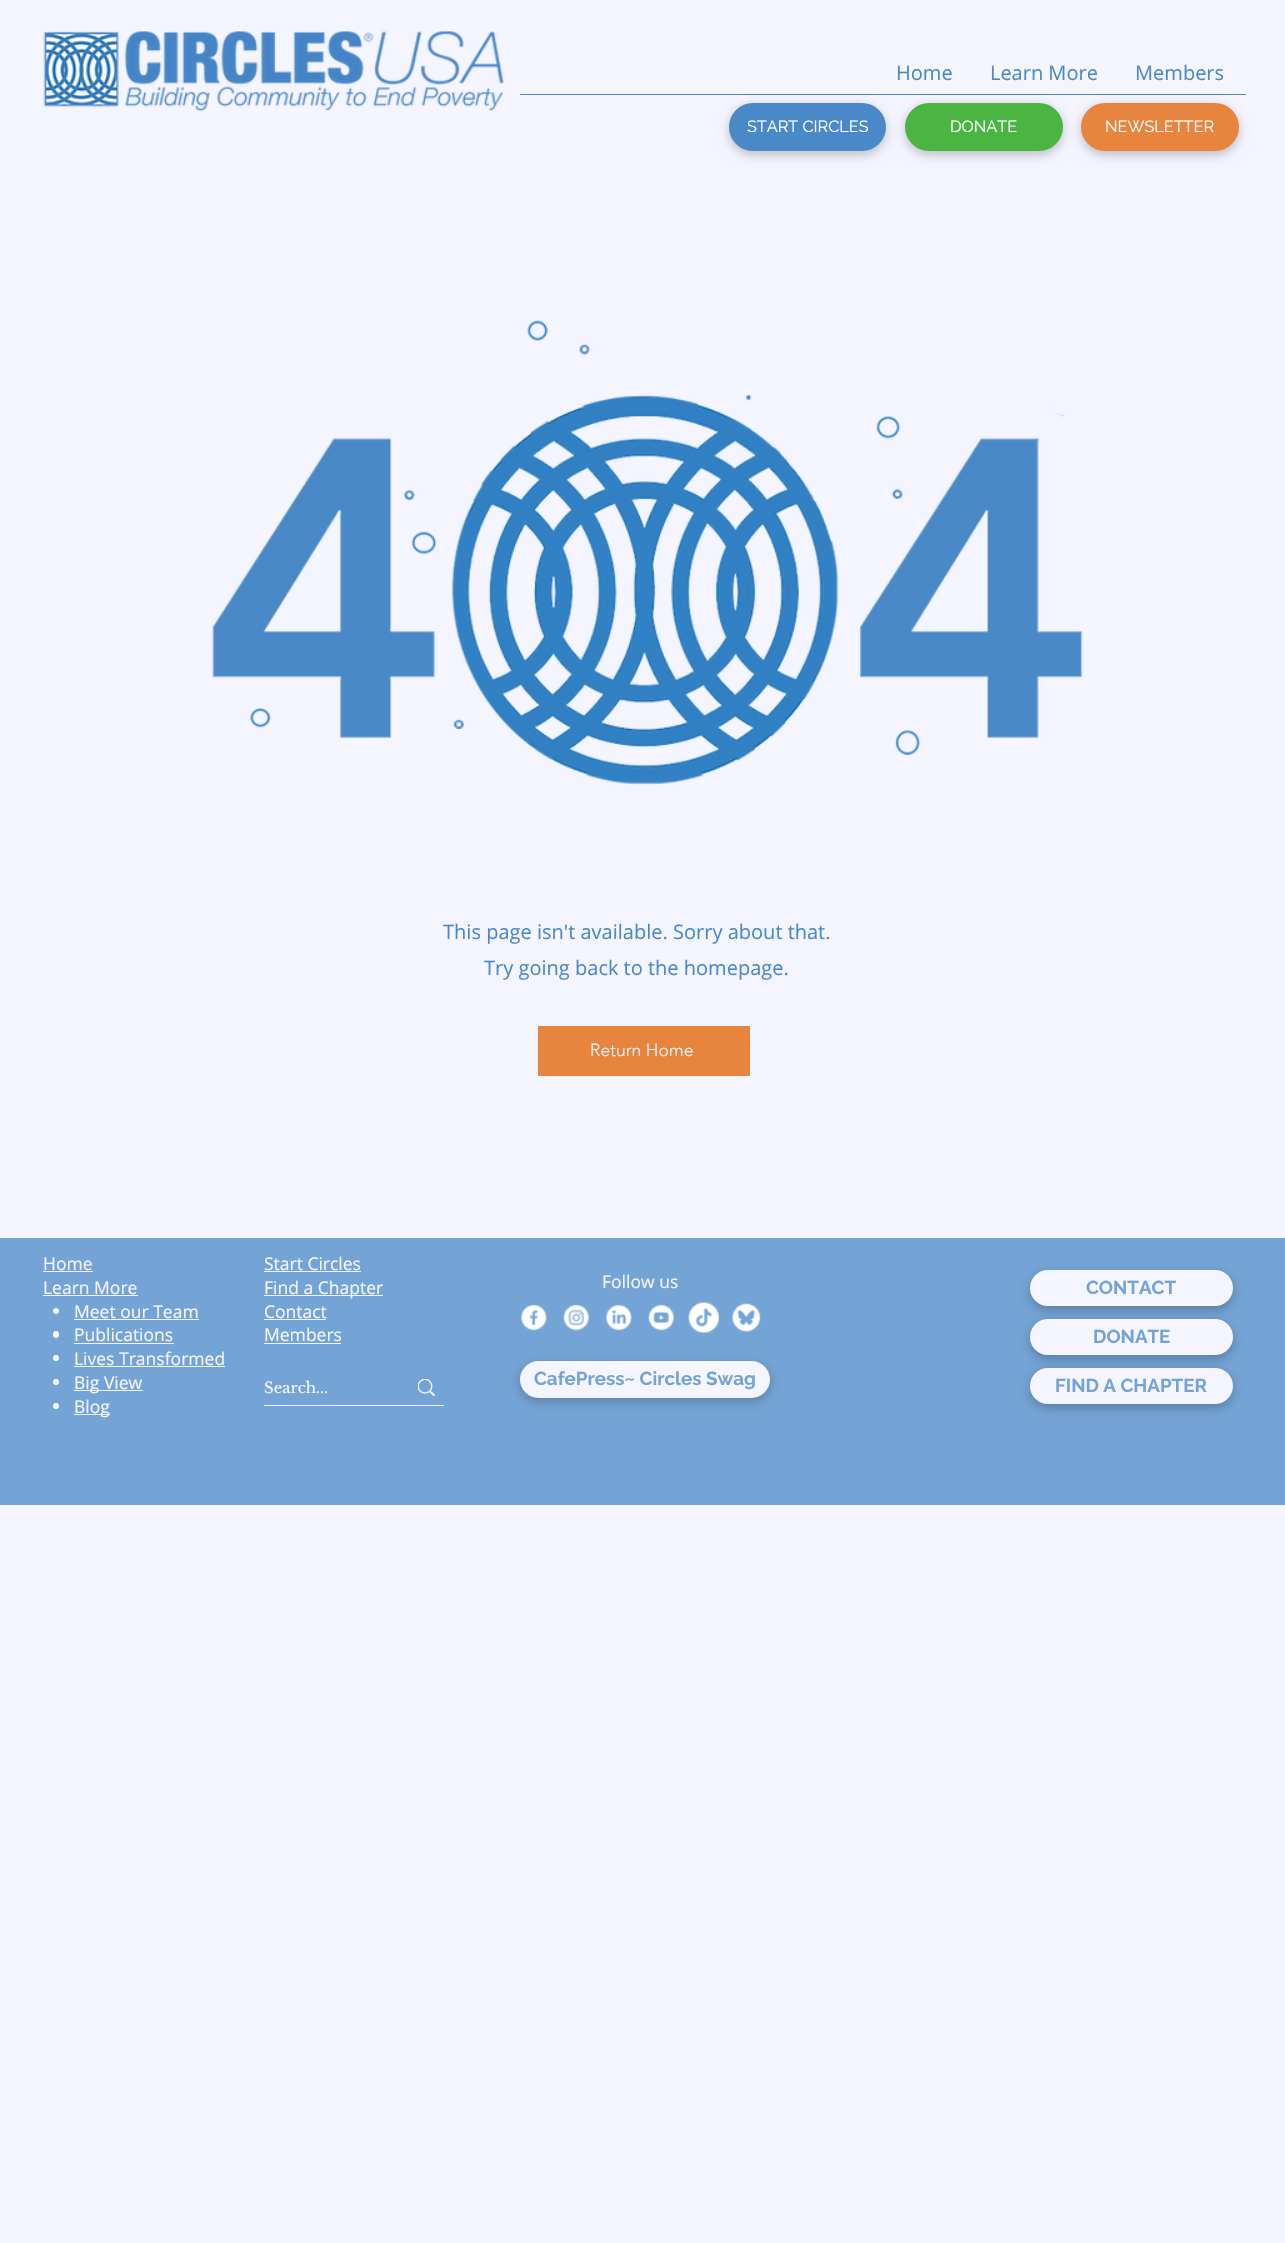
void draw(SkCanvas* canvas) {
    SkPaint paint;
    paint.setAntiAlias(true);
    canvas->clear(0xFFF4F5FF);
    canvas->drawImageRect(SkImages::DeferredFromEncodedData(SkData::MakeFromFileName("img1.png")), SkRect::MakeXYWH(43, 31, 461, 81), SkSamplingOptions());
    SkFont font1(fontMgr->matchFamilyStyle("Open Sans", SkFontStyle::Normal()), 20);
    font1.setSubpixel(true);
    paint.setColor(0xFF4989C7);
    canvas->drawString("Home", 896, 80, font1, paint);
    canvas->drawString("Learn More", 990, 80, font1, paint);
    canvas->drawString("Members", 1135, 80, font1, paint);
    canvas->drawRect(SkRect::MakeXYWH(520, 94, 726, 1), paint);
    paint.setColor(0x3B000000);
    paint.setMaskFilter(SkMaskFilter::MakeBlur(kNormal_SkBlurStyle, 5.5f));
    canvas->drawRoundRect(SkRect::MakeXYWH(729, 106, 157, 49), 24.5f, 24.5f, paint);
    paint.setMaskFilter(nullptr);
    paint.setColor(0xFF4989C7);
    canvas->drawRoundRect(SkRect::MakeXYWH(729, 103, 157, 48), 24, 24, paint);
    SkFont font2(fontMgr->matchFamilyStyle("Raleway", SkFontStyle::Normal()), 16.25f);
    font2.setSubpixel(true);
    paint.setColor(0xFFFFFFFF);
    canvas->drawString("START CIRCLES", 747, 132, font2, paint);
    paint.setColor(0x3B000000);
    paint.setMaskFilter(SkMaskFilter::MakeBlur(kNormal_SkBlurStyle, 5.5f));
    canvas->drawRoundRect(SkRect::MakeXYWH(905, 106, 158, 49), 24.5f, 24.5f, paint);
    paint.setMaskFilter(nullptr);
    paint.setColor(0xFF4BB543);
    canvas->drawRoundRect(SkRect::MakeXYWH(905, 103, 158, 48), 24, 24, paint);
    paint.setColor(0xFFFFFFFF);
    canvas->drawString("DONATE", 950, 132, font2, paint);
    paint.setColor(0x3B000000);
    paint.setMaskFilter(SkMaskFilter::MakeBlur(kNormal_SkBlurStyle, 5.5f));
    canvas->drawRoundRect(SkRect::MakeXYWH(1081, 106, 158, 49), 24.5f, 24.5f, paint);
    paint.setMaskFilter(nullptr);
    paint.setColor(0xFFE7843D);
    canvas->drawRoundRect(SkRect::MakeXYWH(1081, 103, 158, 48), 24, 24, paint);
    paint.setColor(0xFFFFFFFF);
    canvas->drawString("NEWSLETTER", 1105, 132, font2, paint);
    canvas->drawImageRect(SkImages::DeferredFromEncodedData(SkData::MakeFromFileName("img2.png")), SkRect::MakeXYWH(212, 320, 871, 465), SkSamplingOptions());
    paint.setColor(0xFF4989C7);
    canvas->drawString("This page isn't available. Sorry about that.", 443, 939, font1, paint);
    canvas->drawString("Try going back to the homepage.", 484, 975, font1, paint);
    paint.setColor(0xFFE7843D);
    canvas->drawRect(SkRect::MakeXYWH(538, 1026, 212, 50), paint);
    SkFont font3(fontMgr->matchFamilyStyle("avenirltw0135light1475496", SkFontStyle(300, SkFontStyle::kNormal_Width, SkFontStyle::kUpright_Slant)), 17.5f);
    font3.setSubpixel(true);
    paint.setColor(0xFFF4F5FF);
    canvas->drawString("Return Home", 590, 1056, font3, paint);
    paint.setColor(0xFF74A4D5);
    canvas->drawRect(SkRect::MakeXYWH(0, 1238, 1285, 267), paint);
    SkFont font4(fontMgr->matchFamilyStyle("Open Sans", SkFontStyle::Normal()), 17.5f);
    font4.setSubpixel(true);
    paint.setColor(0xFFF4F5FF);
    canvas->drawString("Home", 43, 1270, font4, paint);
    canvas->drawRect(SkRect::MakeXYWH(43, 1271, 50, 1), paint);
    canvas->drawString("Learn More", 43, 1294, font4, paint);
    canvas->drawRect(SkRect::MakeXYWH(43, 1295, 95, 1), paint);
    canvas->drawCircle(56, 1311, 3, paint);
    canvas->drawString("Meet our Team", 74, 1318, font4, paint);
    canvas->drawRect(SkRect::MakeXYWH(74, 1319, 125, 1), paint);
    canvas->drawRoundRect(SkRect::MakeXYWH(53, 1331, 6, 7), 3, 3, paint);
    canvas->drawString("Publications", 74, 1341, font4, paint);
    canvas->drawRect(SkRect::MakeXYWH(74, 1343, 100, 1), paint);
    canvas->drawCircle(56, 1358, 3, paint);
    canvas->drawString("Lives Transformed", 74, 1365, font4, paint);
    canvas->drawRect(SkRect::MakeXYWH(74, 1366, 151, 1), paint);
    canvas->drawCircle(56, 1382, 3, paint);
    canvas->drawRect(SkRect::MakeXYWH(74, 1390, 69, 1), paint);
    canvas->drawString("Big View", 74, 1389, font4, paint);
    canvas->drawCircle(56, 1406, 3, paint);
    canvas->drawRect(SkRect::MakeXYWH(74, 1414, 36, 1), paint);
    canvas->drawString("Blog", 74, 1413, font4, paint);
    canvas->drawString("Start Circles", 264, 1270, font4, paint);
    canvas->drawRect(SkRect::MakeXYWH(264, 1271, 97, 1), paint);
    canvas->drawRect(SkRect::MakeXYWH(264, 1295, 119, 1), paint);
    canvas->drawString("Find a Chapter", 264, 1294, font4, paint);
    canvas->drawString("Contact", 264, 1318, font4, paint);
    canvas->drawRect(SkRect::MakeXYWH(264, 1319, 62, 1), paint);
    canvas->drawString("Members", 264, 1341, font4, paint);
    canvas->drawRect(SkRect::MakeXYWH(264, 1343, 77, 1), paint);
    canvas->drawRect(SkRect::MakeXYWH(264, 1405, 180, 1), paint);
    SkFont font5(fontMgr->matchFamilyStyle("Libre Baskerville", SkFontStyle::Normal()), 15);
    font5.setSubpixel(true);
    canvas->drawString("Search...", 264, 1393, font5, paint);
    canvas->drawImageRect(SkImages::DeferredFromEncodedData(SkData::MakeFromFileName("img3.png")), SkRect::MakeXYWH(418, 1379, 17, 17), SkSamplingOptions());
    canvas->drawString("Follow us", 602, 1288, font4, paint);
    canvas->drawImageRect(SkImages::DeferredFromEncodedData(SkData::MakeFromFileName("img4.png")), SkRect::MakeXYWH(521, 1304, 26, 27), SkSamplingOptions());
    canvas->drawImageRect(SkImages::DeferredFromEncodedData(SkData::MakeFromFileName("img5.png")), SkRect::MakeXYWH(563, 1304, 26, 27), SkSamplingOptions());
    canvas->drawImageRect(SkImages::DeferredFromEncodedData(SkData::MakeFromFileName("img6.png")), SkRect::MakeXYWH(606, 1304, 26, 27), SkSamplingOptions());
    canvas->drawImageRect(SkImages::DeferredFromEncodedData(SkData::MakeFromFileName("img7.png")), SkRect::MakeXYWH(648, 1304, 26, 27), SkSamplingOptions());
    canvas->drawImageRect(SkImages::DeferredFromEncodedData(SkData::MakeFromFileName("img8.png")), SkRect::MakeXYWH(688, 1302, 31, 31), SkSamplingOptions());
    canvas->drawImageRect(SkImages::DeferredFromEncodedData(SkData::MakeFromFileName("img9.png")), SkRect::MakeXYWH(732, 1303, 29, 29), SkSamplingOptions());
    paint.setColor(0x3B000000);
    paint.setMaskFilter(SkMaskFilter::MakeBlur(kNormal_SkBlurStyle, 5.5f));
    canvas->drawRoundRect(SkRect::MakeXYWH(520, 1365, 250, 36), 18, 18, paint);
    paint.setMaskFilter(nullptr);
    paint.setColor(0xFFF4F5FF);
    canvas->drawRoundRect(SkRect::MakeXYWH(520, 1361, 250, 37), 18.5f, 18.5f, paint);
    SkFont font6(fontMgr->matchFamilyStyle("Raleway", SkFontStyle::Bold()), 18.75f);
    font6.setSubpixel(true);
    paint.setColor(0xFF74A4D5);
    canvas->drawString("CafePress~ Circles Swag", 534, 1385, font6, paint);
    paint.setColor(0x3B000000);
    paint.setMaskFilter(SkMaskFilter::MakeBlur(kNormal_SkBlurStyle, 5.5f));
    canvas->drawRoundRect(SkRect::MakeXYWH(1030, 1274, 203, 36), 18, 18, paint);
    paint.setMaskFilter(nullptr);
    paint.setColor(0xFFF4F5FF);
    canvas->drawRoundRect(SkRect::MakeXYWH(1030, 1270, 203, 36), 18, 18, paint);
    paint.setColor(0xFF74A4D5);
    canvas->drawString("CONTACT", 1086, 1294, font6, paint);
    paint.setColor(0x3B000000);
    paint.setMaskFilter(SkMaskFilter::MakeBlur(kNormal_SkBlurStyle, 5.5f));
    canvas->drawRoundRect(SkRect::MakeXYWH(1030, 1323, 203, 36), 18, 18, paint);
    paint.setMaskFilter(nullptr);
    paint.setColor(0xFFF4F5FF);
    canvas->drawRoundRect(SkRect::MakeXYWH(1030, 1319, 203, 36), 18, 18, paint);
    paint.setColor(0xFF74A4D5);
    canvas->drawString("DONATE", 1093, 1343, font6, paint);
    paint.setColor(0x3B000000);
    paint.setMaskFilter(SkMaskFilter::MakeBlur(kNormal_SkBlurStyle, 5.5f));
    canvas->drawRoundRect(SkRect::MakeXYWH(1030, 1371, 203, 37), 18.5f, 18.5f, paint);
    paint.setMaskFilter(nullptr);
    paint.setColor(0xFFF4F5FF);
    canvas->drawRoundRect(SkRect::MakeXYWH(1030, 1368, 203, 36), 18, 18, paint);
    paint.setColor(0xFF74A4D5);
    canvas->drawString("FIND A CHAPTER", 1055, 1392, font6, paint);
}
